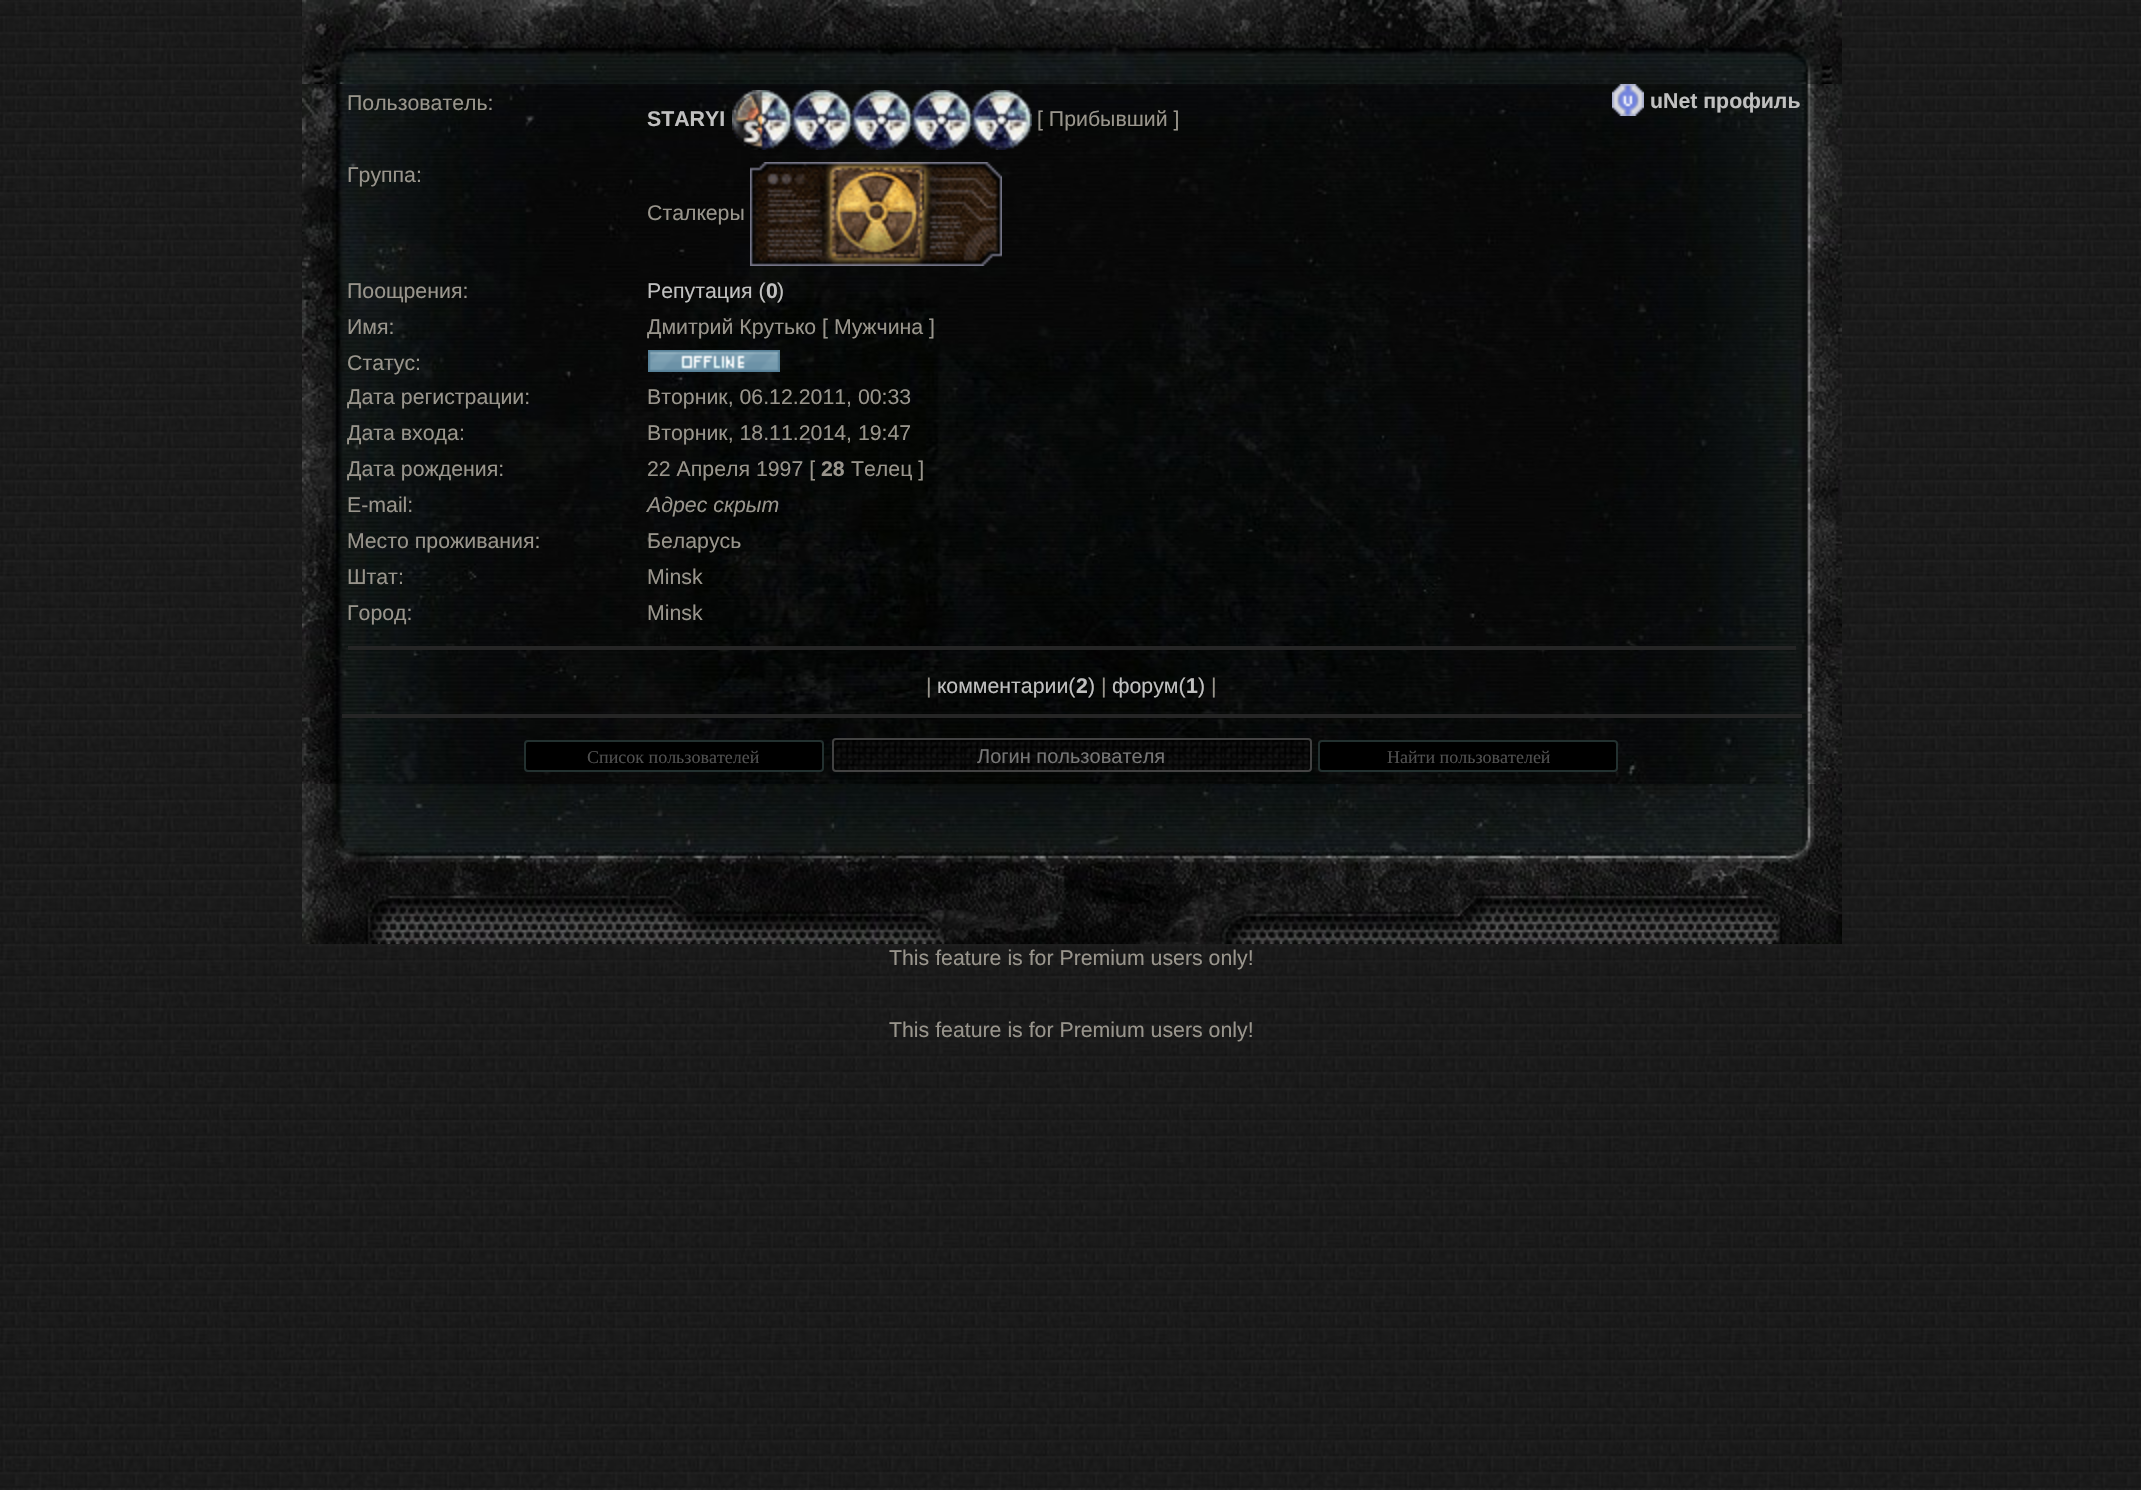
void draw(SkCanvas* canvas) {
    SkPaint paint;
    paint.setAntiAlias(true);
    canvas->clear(0xFFFFFFFF);
    canvas->drawImageRect(SkImages::DeferredFromEncodedData(SkData::MakeFromFileName("img1.png")), SkRect::MakeXYWH(0, 0, 2141, 1490), SkSamplingOptions());
    canvas->drawImageRect(SkImages::DeferredFromEncodedData(SkData::MakeFromFileName("img2.png")), SkRect::MakeXYWH(302, 0, 1540, 84), SkSamplingOptions());
    canvas->drawImageRect(SkImages::DeferredFromEncodedData(SkData::MakeFromFileName("img3.png")), SkRect::MakeXYWH(302, 84, 1540, 700), SkSamplingOptions());
    SkFont font1(fontMgr->matchFamilyStyle("Liberation Sans", SkFontStyle::Normal()), 21.3f);
    font1.setSubpixel(true);
    paint.setColor(0xFF99958C);
    canvas->drawString("Пользователь:", 347, 110, font1, paint);
    canvas->drawImageRect(SkImages::DeferredFromEncodedData(SkData::MakeFromFileName("img4.png")), SkRect::MakeXYWH(732, 90, 300, 60), SkSamplingOptions());
    SkFont font2(fontMgr->matchFamilyStyle("Liberation Sans", SkFontStyle::Bold()), 21.3f);
    font2.setSubpixel(true);
    paint.setColor(0xFFC0C0C0);
    canvas->drawString("STARYI", 647, 126, font2, paint);
    paint.setColor(0xFF99958C);
    canvas->drawString("[ Прибывший ]", 1037, 126, font1, paint);
    canvas->drawImageRect(SkImages::DeferredFromEncodedData(SkData::MakeFromFileName("img5.png")), SkRect::MakeXYWH(1612, 84, 32, 32), SkSamplingOptions());
    paint.setColor(0xFFC0C0C0);
    canvas->drawString("uNet профиль", 1650, 108, font2, paint);
    paint.setColor(0xFF99958C);
    canvas->drawString("Группа:", 347, 182, font1, paint);
    canvas->drawImageRect(SkImages::DeferredFromEncodedData(SkData::MakeFromFileName("img6.png")), SkRect::MakeXYWH(750, 162, 252, 104), SkSamplingOptions());
    canvas->drawString("Сталкеры", 647, 220, font1, paint);
    canvas->drawString("Поощрения:", 347, 298, font1, paint);
    paint.setColor(0xFFC0C0C0);
    canvas->drawString("Репутация (", 647, 298, font1, paint);
    canvas->drawString("0", 766, 298, font2, paint);
    canvas->drawString(")", 777, 298, font1, paint);
    paint.setColor(0xFF99958C);
    canvas->drawString("Имя:", 347, 334, font1, paint);
    canvas->drawString("Дмитрий Крутько [ Мужчина ]", 647, 334, font1, paint);
    canvas->drawString("Статус:", 347, 370, font1, paint);
    canvas->drawImageRect(SkImages::DeferredFromEncodedData(SkData::MakeFromFileName("img7.png")), SkRect::MakeXYWH(648, 350, 132, 22), SkSamplingOptions());
    canvas->drawString("Дата регистрации:", 347, 404, font1, paint);
    canvas->drawString("Вторник, 06.12.2011, 00:33", 647, 404, font1, paint);
    canvas->drawString("Дата входа:", 347, 440, font1, paint);
    canvas->drawString("Вторник, 18.11.2014, 19:47", 647, 440, font1, paint);
    canvas->drawString("Дата рождения:", 347, 476, font1, paint);
    canvas->drawString("22 Апреля 1997 [", 647, 476, font1, paint);
    canvas->drawString("28", 821, 476, font2, paint);
    canvas->drawString("Телец ]", 851, 476, font1, paint);
    canvas->drawString("E-mail:", 347, 512, font1, paint);
    SkFont font3(fontMgr->matchFamilyStyle("Liberation Sans", SkFontStyle::Italic()), 21.3f);
    font3.setSubpixel(true);
    canvas->drawString("Адрес скрыт", 647, 512, font3, paint);
    canvas->drawString("Место проживания:", 347, 548, font1, paint);
    canvas->drawString("Беларусь", 647, 548, font1, paint);
    canvas->drawString("Штат:", 347, 584, font1, paint);
    canvas->drawString("Minsk", 647, 584, font1, paint);
    canvas->drawString("Город:", 347, 620, font1, paint);
    canvas->drawString("Minsk", 647, 620, font1, paint);
    paint.setColor(0xFF252525);
    canvas->drawRect(SkRect::MakeXYWH(348, 646, 1448, 4), paint);
    paint.setColor(0xFF99958C);
    canvas->drawString("|", 926, 693, font1, paint);
    paint.setColor(0xFFC0C0C0);
    canvas->drawString("комментарии(", 937, 693, font1, paint);
    canvas->drawString("2", 1076, 693, font2, paint);
    canvas->drawString(")", 1088, 693, font1, paint);
    paint.setColor(0xFF99958C);
    canvas->drawString("|", 1101, 693, font1, paint);
    paint.setColor(0xFFC0C0C0);
    canvas->drawString("форум(", 1112, 693, font1, paint);
    canvas->drawString("1", 1186, 693, font2, paint);
    canvas->drawString(")", 1198, 693, font1, paint);
    paint.setColor(0xFF99958C);
    canvas->drawString("|", 1211, 693, font1, paint);
    paint.setColor(0xFF252525);
    canvas->drawRect(SkRect::MakeXYWH(342, 714, 1460, 4), paint);
    paint.setColor(0xFF000000);
    canvas->drawRoundRect(SkRect::MakeXYWH(525, 741, 298, 30), 3, 3, paint);
    paint.setStyle(SkPaint::kStroke_Style);
    paint.setStrokeWidth(2);
    paint.setColor(0xFF233130);
    canvas->drawRoundRect(SkRect::MakeXYWH(525, 741, 298, 30), 3, 3, paint);
    SkFont font4(fontMgr->matchFamilyStyle("Liberation Serif", SkFontStyle::Normal()), 18);
    font4.setSubpixel(true);
    paint.setStyle(SkPaint::kFill_Style);
    paint.setColor(0xFF505050);
    canvas->drawString("Список пользователей", 587, 763, font4, paint);
    canvas->drawImageRect(SkImages::DeferredFromEncodedData(SkData::MakeFromFileName("img8.png")), SkRect::MakeXYWH(832, 738, 480, 34), SkSamplingOptions());
    paint.setStyle(SkPaint::kStroke_Style);
    paint.setColor(0xFF424242);
    canvas->drawRoundRect(SkRect::MakeXYWH(833, 739, 478, 32), 3, 3, paint);
    SkFont font5(fontMgr->matchFamilyStyle("Liberation Sans", SkFontStyle::Normal()), 20);
    font5.setSubpixel(true);
    paint.setStyle(SkPaint::kFill_Style);
    paint.setColor(0xFF767676);
    canvas->drawString("Логин пользователя", 977, 763, font5, paint);
    paint.setColor(0xFF000000);
    canvas->drawRoundRect(SkRect::MakeXYWH(1319, 741, 298, 30), 3, 3, paint);
    paint.setStyle(SkPaint::kStroke_Style);
    paint.setColor(0xFF233130);
    canvas->drawRoundRect(SkRect::MakeXYWH(1319, 741, 298, 30), 3, 3, paint);
    paint.setStyle(SkPaint::kFill_Style);
    paint.setColor(0xFF505050);
    canvas->drawString("Найти пользователей", 1387, 763, font4, paint);
    canvas->drawImageRect(SkImages::DeferredFromEncodedData(SkData::MakeFromFileName("img9.png")), SkRect::MakeXYWH(302, 784, 1540, 160), SkSamplingOptions());
    paint.setColor(0xFF99958C);
    canvas->drawString("This feature is for Premium users only!", 889, 965, font1, paint);
    canvas->drawString("This feature is for Premium users only!", 889, 1037, font1, paint);
}
